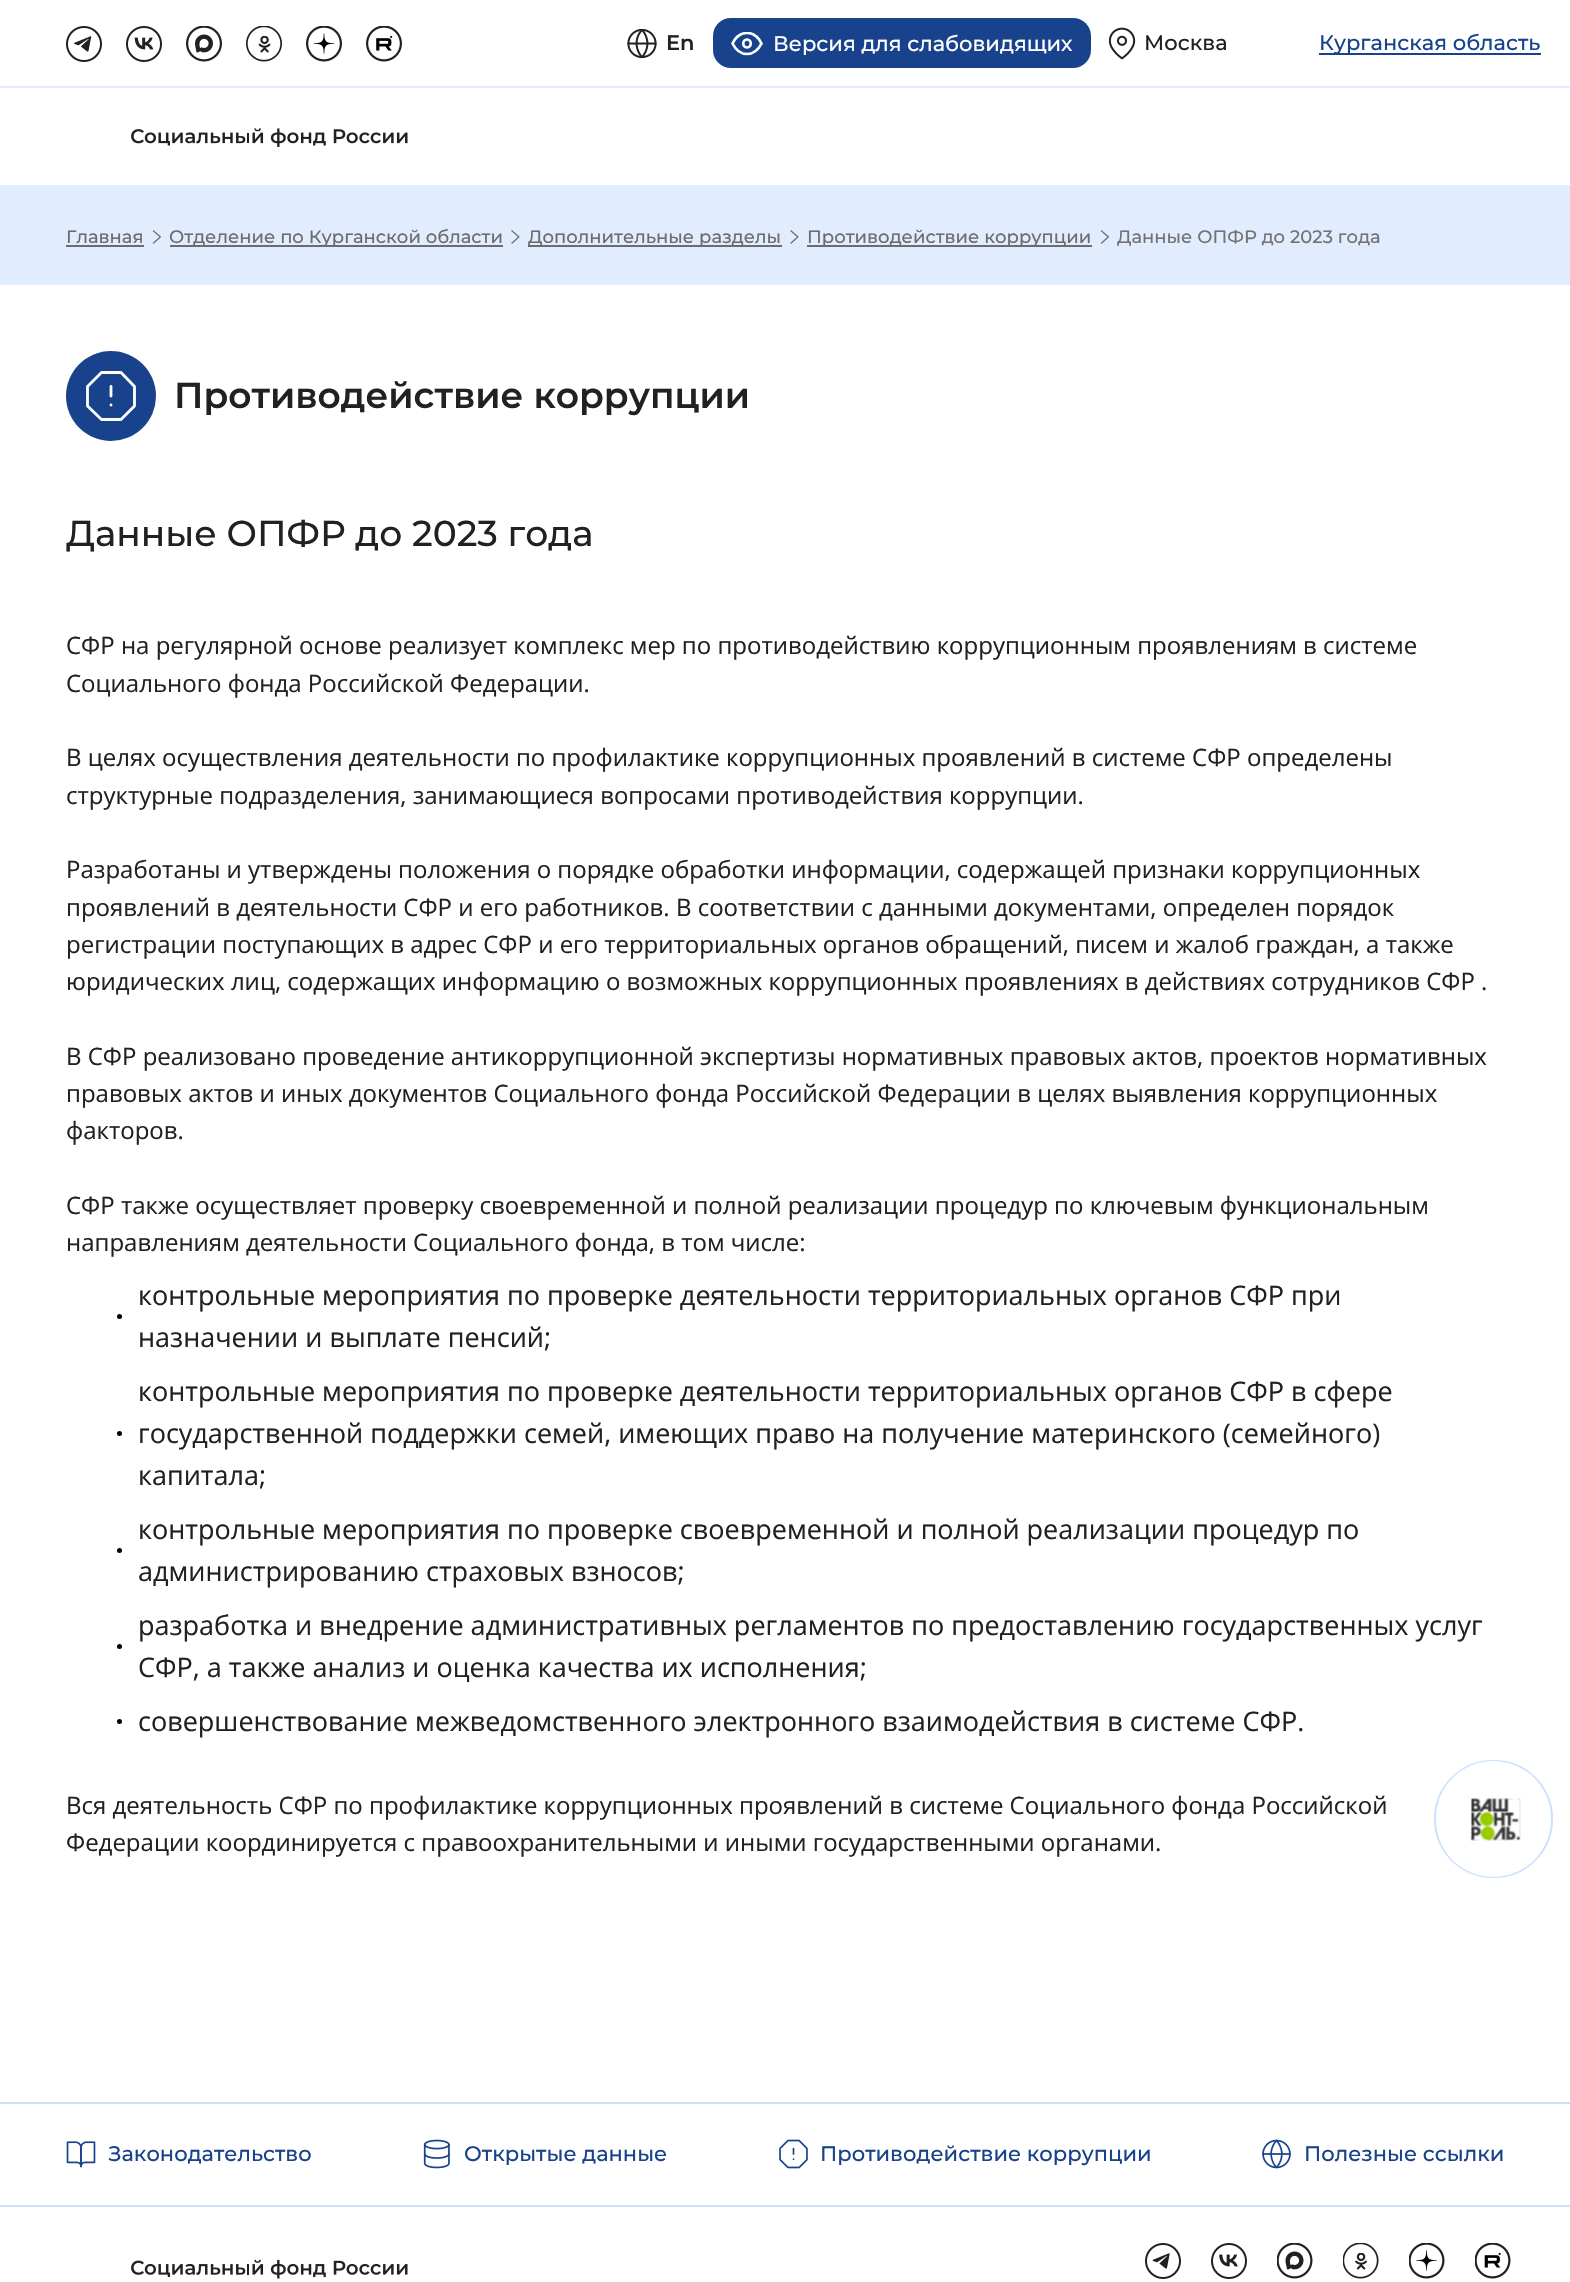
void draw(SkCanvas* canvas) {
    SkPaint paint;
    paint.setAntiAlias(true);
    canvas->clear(0xFFFFFFFF);
    paint.setColor(0xFFE1EDFE);
    canvas->drawRect(SkRect::MakeXYWH(0, 86, 1570, 2), paint);
    canvas->drawImageRect(SkImages::DeferredFromEncodedData(SkData::MakeFromFileName("img1.png")), SkRect::MakeXYWH(66, 26, 36, 36), SkSamplingOptions());
    canvas->drawImageRect(SkImages::DeferredFromEncodedData(SkData::MakeFromFileName("img2.png")), SkRect::MakeXYWH(126, 26, 36, 36), SkSamplingOptions());
    canvas->drawImageRect(SkImages::DeferredFromEncodedData(SkData::MakeFromFileName("img3.png")), SkRect::MakeXYWH(186, 26, 36, 36), SkSamplingOptions());
    canvas->drawImageRect(SkImages::DeferredFromEncodedData(SkData::MakeFromFileName("img4.png")), SkRect::MakeXYWH(246, 26, 36, 36), SkSamplingOptions());
    canvas->drawImageRect(SkImages::DeferredFromEncodedData(SkData::MakeFromFileName("img5.png")), SkRect::MakeXYWH(306, 26, 36, 36), SkSamplingOptions());
    canvas->drawImageRect(SkImages::DeferredFromEncodedData(SkData::MakeFromFileName("img6.png")), SkRect::MakeXYWH(366, 26, 36, 36), SkSamplingOptions());
    canvas->drawImageRect(SkImages::DeferredFromEncodedData(SkData::MakeFromFileName("img7.png")), SkRect::MakeXYWH(627, 29, 30, 30), SkSamplingOptions());
    SkFont font1(fontMgr->matchFamilyStyle("Montserrat", SkFontStyle(600, SkFontStyle::kNormal_Width, SkFontStyle::kUpright_Slant)), 21);
    font1.setSubpixel(true);
    paint.setColor(0xFF212121);
    canvas->drawString("En", 666, 50, font1, paint);
    paint.setColor(0xFF18438C);
    canvas->drawRoundRect(SkRect::MakeXYWH(713, 18, 378, 50), 18, 18, paint);
    canvas->save();
    canvas->clipRect(SkRect::MakeXYWH(731, 32, 33, 24));
    paint.setStyle(SkPaint::kStroke_Style);
    paint.setStrokeWidth(2.7f);
    paint.setStrokeCap(SkPaint::kRound_Cap);
    paint.setStrokeJoin(SkPaint::kRound_Join);
    paint.setColor(0xFFFFFFFF);
    canvas->drawPath(SkPathBuilder().moveTo(732.5f, 43.5f).cubicTo(739.5f, 29.5f, 754.5f, 29.5f, 761.5f, 43.5f).cubicTo(754.5f, 57.5f, 739.5f, 57.5f, 732.5f, 43.5f).close().detach(), paint);
    canvas->restore();
    canvas->drawPath(SkPathBuilder().moveTo(747, 47.5f).cubicTo(752, 47.5f, 752, 39.5f, 747, 39.5f).cubicTo(742, 39.5f, 742, 47.5f, 747, 47.5f).close().detach(), paint);
    SkFont font2(fontMgr->matchFamilyStyle("Montserrat", SkFontStyle(500, SkFontStyle::kNormal_Width, SkFontStyle::kUpright_Slant)), 21);
    font2.setSubpixel(true);
    paint.setStyle(SkPaint::kFill_Style);
    canvas->drawString("Версия для слабовидящих", 773, 51, font2, paint);
    canvas->drawImageRect(SkImages::DeferredFromEncodedData(SkData::MakeFromFileName("img8.png")), SkRect::MakeXYWH(1109, 27, 27, 33), SkSamplingOptions());
    paint.setColor(0xFF212121);
    canvas->drawString("Москва", 1144, 50, font2, paint);
    paint.setColor(0xFF18438C);
    canvas->drawRect(SkRect::MakeXYWH(1319, 53, 222, 2), paint);
    canvas->drawString("Курганская область", 1319, 50, font2, paint);
    canvas->drawImageRect(SkImages::DeferredFromEncodedData(SkData::MakeFromFileName("img9.png")), SkRect::MakeXYWH(131, 128, 277, 19), SkSamplingOptions());
    paint.setColor(0xFFE1EDFE);
    canvas->drawRect(SkRect::MakeXYWH(0, 185, 1570, 100), paint);
    SkFont font3(fontMgr->matchFamilyStyle("Montserrat", SkFontStyle(500, SkFontStyle::kNormal_Width, SkFontStyle::kUpright_Slant)), 18);
    font3.setSubpixel(true);
    paint.setColor(0xFF6C6C6C);
    canvas->drawString("Главная", 66, 243, font3, paint);
    canvas->drawRect(SkRect::MakeXYWH(66, 245, 78, 2), paint);
    canvas->drawImageRect(SkImages::DeferredFromEncodedData(SkData::MakeFromFileName("img10.png")), SkRect::MakeXYWH(152, 230, 9, 14), SkSamplingOptions());
    canvas->drawRect(SkRect::MakeXYWH(170, 245, 333, 2), paint);
    canvas->drawString("Отделение по Курганской области", 169, 243, font3, paint);
    canvas->drawImageRect(SkImages::DeferredFromEncodedData(SkData::MakeFromFileName("img11.png")), SkRect::MakeXYWH(511, 230, 9, 14), SkSamplingOptions());
    canvas->drawRect(SkRect::MakeXYWH(528, 245, 254, 2), paint);
    canvas->drawString("Дополнительные разделы", 528, 243, font3, paint);
    canvas->drawImageRect(SkImages::DeferredFromEncodedData(SkData::MakeFromFileName("img11.png")), SkRect::MakeXYWH(790, 230, 9, 14), SkSamplingOptions());
    canvas->drawRect(SkRect::MakeXYWH(807, 245, 285, 2), paint);
    canvas->drawString("Противодействие коррупции", 807, 243, font3, paint);
    canvas->drawImageRect(SkImages::DeferredFromEncodedData(SkData::MakeFromFileName("img10.png")), SkRect::MakeXYWH(1100, 230, 9, 14), SkSamplingOptions());
    paint.setColor(0xFF727273);
    canvas->drawString("Данные ОПФР до 2023 года", 1117, 243, font3, paint);
    paint.setColor(0xFF18438C);
    canvas->drawCircle(111, 396, 45, paint);
    paint.setStyle(SkPaint::kStroke_Style);
    paint.setStrokeWidth(2.8f);
    paint.setColor(0xFFFFFFFF);
    canvas->drawPath(SkPathBuilder().moveTo(101.5f, 372.5f).lineTo(121, 372.5f).lineTo(134.5f, 386.5f).lineTo(134.5f, 406).lineTo(121, 419.5f).lineTo(101.5f, 419.5f).lineTo(87.5f, 406).lineTo(87.5f, 386.5f).close().moveTo(111, 386.5f).lineTo(111, 396).moveTo(111, 405).lineTo(111, 405).detach(), paint);
    SkFont font4(fontMgr->matchFamilyStyle("Montserrat", SkFontStyle(600, SkFontStyle::kNormal_Width, SkFontStyle::kUpright_Slant)), 36);
    font4.setSubpixel(true);
    paint.setStyle(SkPaint::kFill_Style);
    paint.setColor(0xFF212121);
    canvas->drawString("Противодействие коррупции", 174, 408, font4, paint);
    SkFont font5(fontMgr->matchFamilyStyle("Montserrat", SkFontStyle(500, SkFontStyle::kNormal_Width, SkFontStyle::kUpright_Slant)), 36);
    font5.setSubpixel(true);
    canvas->drawString("Данные ОПФР до 2023 года", 66, 546, font5, paint);
    SkFont font6(fontMgr->matchFamilyStyle("Open Sans", SkFontStyle::Normal()), 24);
    font6.setSubpixel(true);
    canvas->drawString("СФР на регулярной основе реализует комплекс мер по противодействию коррупционным проявлениям в системе", 66, 654, font6, paint);
    canvas->drawString("Социального фонда Российской Федерации.", 66, 692, font6, paint);
    canvas->drawString("В целях осуществления деятельности по профилактике коррупционных проявлений в системе СФР определены", 66, 766, font6, paint);
    canvas->drawString("структурные подразделения, занимающиеся вопросами противодействия коррупции.", 66, 804, font6, paint);
    canvas->drawString("Разработаны и утверждены положения о порядке обработки информации, содержащей признаки коррупционных", 66, 878, font6, paint);
    canvas->drawString("проявлений в деятельности СФР и его работников. В соответствии с данными документами, определен порядок", 66, 916, font6, paint);
    canvas->drawString("регистрации поступающих в адрес СФР и его территориальных органов обращений, писем и жалоб граждан, а также", 66, 953, font6, paint);
    canvas->drawString("юридических лиц, содержащих информацию о возможных коррупционных проявлениях в действиях сотрудников СФР .", 66, 990, font6, paint);
    canvas->drawString("В СФР реализовано проведение антикоррупционной экспертизы нормативных правовых актов, проектов нормативных", 66, 1065, font6, paint);
    canvas->drawString("правовых актов и иных документов Социального фонда Российской Федерации в целях выявления коррупционных", 66, 1102, font6, paint);
    canvas->drawString("факторов.", 66, 1139, font6, paint);
    canvas->drawString("СФР также осуществляет проверку своевременной и полной реализации процедур по ключевым функциональным", 66, 1214, font6, paint);
    canvas->drawString("направлениям деятельности Социального фонда, в том числе:", 66, 1251, font6, paint);
    SkFont font7(fontMgr->matchFamilyStyle("Open Sans", SkFontStyle::Normal()), 27);
    font7.setSubpixel(true);
    canvas->drawString("контрольные мероприятия по проверке деятельности территориальных органов СФР при", 138, 1305, font7, paint);
    paint.setColor(0xFF000000);
    canvas->drawCircle(119.5f, 1316.5f, 2.5f, paint);
    paint.setColor(0xFF212121);
    canvas->drawString("назначении и выплате пенсий;", 138, 1347, font7, paint);
    canvas->drawString("контрольные мероприятия по проверке деятельности территориальных органов СФР в сфере", 138, 1401, font7, paint);
    paint.setColor(0xFF000000);
    canvas->drawCircle(119.5f, 1433.5f, 2.5f, paint);
    paint.setColor(0xFF212121);
    canvas->drawString("государственной поддержки семей, имеющих право на получение материнского (семейного)", 138, 1443, font7, paint);
    canvas->drawString("капитала;", 138, 1485, font7, paint);
    canvas->drawString("контрольные мероприятия по проверке своевременной и полной реализации процедур по", 138, 1539, font7, paint);
    paint.setColor(0xFF000000);
    canvas->drawCircle(119.5f, 1550.5f, 2.5f, paint);
    paint.setColor(0xFF212121);
    canvas->drawString("администрированию страховых взносов;", 138, 1581, font7, paint);
    canvas->drawString("разработка и внедрение административных регламентов по предоставлению государственных услуг", 138, 1635, font7, paint);
    paint.setColor(0xFF000000);
    canvas->drawCircle(119.5f, 1646.5f, 2.5f, paint);
    paint.setColor(0xFF212121);
    canvas->drawString("СФР, а также анализ и оценка качества их исполнения;", 138, 1677, font7, paint);
    paint.setColor(0xFF000000);
    canvas->drawCircle(119.5f, 1721.5f, 2.5f, paint);
    paint.setColor(0xFF212121);
    canvas->drawString("совершенствование межведомственного электронного взаимодействия в системе СФР.", 138, 1731, font7, paint);
    canvas->drawString("Вся деятельность СФР по профилактике коррупционных проявлений в системе Социального фонда Российской", 66, 1814, font6, paint);
    canvas->drawString("Федерации координируется с правоохранительными и иными государственными органами.", 66, 1851, font6, paint);
    paint.setStyle(SkPaint::kStroke_Style);
    paint.setStrokeWidth(2);
    paint.setStrokeCap(SkPaint::kButt_Cap);
    paint.setStrokeJoin(SkPaint::kMiter_Join);
    paint.setColor(0xFFCBE0FF);
    canvas->drawRoundRect(SkRect::MakeXYWH(1435, 1761, 117, 116), 58, 58, paint);
    canvas->save();
    canvas->clipPath(SkPathBuilder().moveTo(1493.5f, 1761).cubicTo(1525.5f, 1761, 1551, 1786.5f, 1551, 1818.5f).lineTo(1551, 1819.5f).cubicTo(1551, 1851.5f, 1525.5f, 1877, 1493.5f, 1877).cubicTo(1461.5f, 1877, 1436, 1851.5f, 1436, 1819.5f).lineTo(1436, 1818.5f).cubicTo(1436, 1786.5f, 1461.5f, 1761, 1493.5f, 1761).close().detach(), true);
    paint.setStyle(SkPaint::kFill_Style);
    paint.setColor(0xFFFFFFFF);
    canvas->drawPath(SkPathBuilder().moveTo(1439, 1761).lineTo(1493.5f, 1761).cubicTo(1525.5f, 1761, 1551, 1786.5f, 1551, 1818.5f).lineTo(1551, 1819.5f).cubicTo(1551, 1851.5f, 1525.5f, 1877, 1493.5f, 1877).lineTo(1439, 1877).close().detach(), paint);
    {
        const SkColor colors[] = {0x87FFFFFF, 0x00FFFFFF};
        const float stops[] = {0, 1};
        const SkPoint ends[] = {{1446, 1819}, {1413, 1819}};
        paint.setShader(SkGradientShader::MakeLinear(ends, colors, stops, 2, SkTileMode::kClamp));
        paint.setAlpha(255);
    }
    canvas->drawRect(SkRect::MakeXYWH(1436, 1786, 10, 66), paint);
    canvas->restore();
    canvas->drawImageRect(SkImages::DeferredFromEncodedData(SkData::MakeFromFileName("img12.png")), SkRect::MakeXYWH(1470, 1798, 51, 43), SkSamplingOptions());
    paint.setShader(nullptr);
    paint.setColor(0xFFCDDEFB);
    canvas->drawRect(SkRect::MakeXYWH(0, 2102, 1570, 2), paint);
    canvas->drawImageRect(SkImages::DeferredFromEncodedData(SkData::MakeFromFileName("img13.png")), SkRect::MakeXYWH(66, 2141, 30, 27), SkSamplingOptions());
    paint.setColor(0xFF18438C);
    canvas->drawString("Законодательство", 108, 2161, font2, paint);
    canvas->drawImageRect(SkImages::DeferredFromEncodedData(SkData::MakeFromFileName("img14.png")), SkRect::MakeXYWH(423, 2139, 27, 30), SkSamplingOptions());
    canvas->drawString("Открытые данные", 464, 2161, font2, paint);
    canvas->drawImageRect(SkImages::DeferredFromEncodedData(SkData::MakeFromFileName("img15.png")), SkRect::MakeXYWH(779, 2139, 29, 30), SkSamplingOptions());
    canvas->drawString("Противодействие коррупции", 820, 2161, font2, paint);
    canvas->drawImageRect(SkImages::DeferredFromEncodedData(SkData::MakeFromFileName("img16.png")), SkRect::MakeXYWH(1262, 2139, 29, 30), SkSamplingOptions());
    canvas->drawString("Полезные ссылки", 1304, 2161, font2, paint);
    paint.setColor(0xFFCDDEFB);
    canvas->drawRect(SkRect::MakeXYWH(0, 2205, 1570, 2), paint);
    canvas->drawImageRect(SkImages::DeferredFromEncodedData(SkData::MakeFromFileName("img17.png")), SkRect::MakeXYWH(131, 2259, 277, 20), SkSamplingOptions());
    canvas->drawImageRect(SkImages::DeferredFromEncodedData(SkData::MakeFromFileName("img18.png")), SkRect::MakeXYWH(1145, 2243, 36, 36), SkSamplingOptions());
    canvas->drawImageRect(SkImages::DeferredFromEncodedData(SkData::MakeFromFileName("img19.png")), SkRect::MakeXYWH(1211, 2243, 36, 36), SkSamplingOptions());
    canvas->drawImageRect(SkImages::DeferredFromEncodedData(SkData::MakeFromFileName("img20.png")), SkRect::MakeXYWH(1277, 2243, 36, 36), SkSamplingOptions());
    canvas->drawImageRect(SkImages::DeferredFromEncodedData(SkData::MakeFromFileName("img21.png")), SkRect::MakeXYWH(1343, 2243, 36, 36), SkSamplingOptions());
    canvas->drawImageRect(SkImages::DeferredFromEncodedData(SkData::MakeFromFileName("img22.png")), SkRect::MakeXYWH(1409, 2243, 36, 36), SkSamplingOptions());
    canvas->drawImageRect(SkImages::DeferredFromEncodedData(SkData::MakeFromFileName("img23.png")), SkRect::MakeXYWH(1475, 2243, 36, 36), SkSamplingOptions());
}
